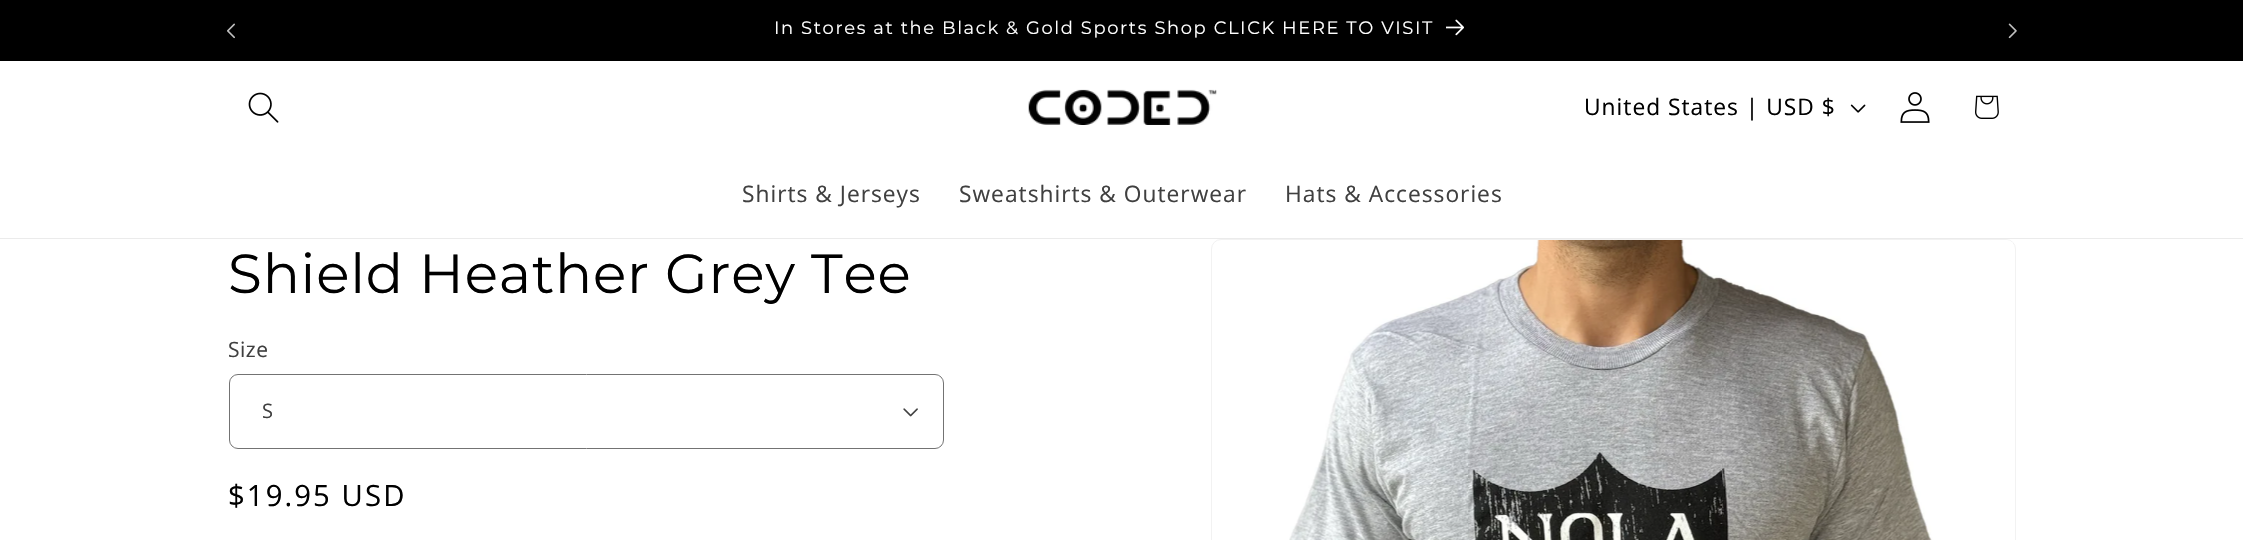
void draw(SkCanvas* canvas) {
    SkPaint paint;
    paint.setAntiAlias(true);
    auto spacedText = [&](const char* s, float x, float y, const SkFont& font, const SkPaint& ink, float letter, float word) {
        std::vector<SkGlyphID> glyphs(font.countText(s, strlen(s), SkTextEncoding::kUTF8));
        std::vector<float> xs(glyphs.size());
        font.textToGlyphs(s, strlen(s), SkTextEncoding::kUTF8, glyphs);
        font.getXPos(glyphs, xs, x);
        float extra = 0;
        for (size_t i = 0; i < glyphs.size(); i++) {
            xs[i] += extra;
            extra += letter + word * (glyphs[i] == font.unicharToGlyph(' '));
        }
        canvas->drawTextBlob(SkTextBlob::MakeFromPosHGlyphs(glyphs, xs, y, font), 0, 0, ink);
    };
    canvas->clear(0xFFFFFFFF);
    paint.setColor(0xFF000000);
    canvas->drawRect(SkRect::MakeXYWH(0, 0, 2243, 61), paint);
    canvas->drawImageRect(SkImages::DeferredFromEncodedData(SkData::MakeFromFileName("img1.png")), SkRect::MakeXYWH(227, 23, 8, 16), SkSamplingOptions());
    SkFont font1(fontMgr->matchFamilyStyle("Montserrat", SkFontStyle::Normal()), 17.9f);
    font1.setSubpixel(true);
    paint.setColor(0xFFFFFFFF);
    spacedText("In Stores at the Black & Gold Sports Shop CLICK HERE TO VISIT", 774, 34, font1, paint, 1.62f, 0);
    canvas->drawImageRect(SkImages::DeferredFromEncodedData(SkData::MakeFromFileName("img2.png")), SkRect::MakeXYWH(1446, 19, 18, 17), SkSamplingOptions());
    canvas->drawImageRect(SkImages::DeferredFromEncodedData(SkData::MakeFromFileName("img3.png")), SkRect::MakeXYWH(2008, 23, 9, 16), SkSamplingOptions());
    paint.setColor(0xFFEBEBEB);
    canvas->drawRect(SkRect::MakeXYWH(0, 238, 2243, 1), paint);
    canvas->drawImageRect(SkImages::DeferredFromEncodedData(SkData::MakeFromFileName("img4.png")), SkRect::MakeXYWH(248, 92, 31, 31), SkSamplingOptions());
    canvas->drawImageRect(SkImages::DeferredFromEncodedData(SkData::MakeFromFileName("img5.png")), SkRect::MakeXYWH(1028, 89, 189, 36), SkSamplingOptions());
    SkFont font2(fontMgr->matchFamilyStyle("Open Sans", SkFontStyle::Normal()), 22.75f);
    font2.setSubpixel(true);
    paint.setColor(0xFF000000);
    spacedText("United States | USD $", 1584, 115, font2, paint, 1, 0);
    canvas->drawImageRect(SkImages::DeferredFromEncodedData(SkData::MakeFromFileName("img6.png")), SkRect::MakeXYWH(1850, 104, 16, 9), SkSamplingOptions());
    canvas->drawImageRect(SkImages::DeferredFromEncodedData(SkData::MakeFromFileName("img7.png")), SkRect::MakeXYWH(1900, 92, 30, 31), SkSamplingOptions());
    canvas->drawImageRect(SkImages::DeferredFromEncodedData(SkData::MakeFromFileName("img8.png")), SkRect::MakeXYWH(1975, 95, 24, 24), SkSamplingOptions());
    paint.setColor(0xFF404040);
    spacedText("Shirts & Jerseys", 742, 202, font2, paint, 1, 0);
    spacedText("Sweatshirts & Outerwear", 959, 202, font2, paint, 1, 0);
    spacedText("Hats & Accessories", 1285, 202, font2, paint, 1, 0);
    SkFont font3(fontMgr->matchFamilyStyle("Montserrat", SkFontStyle::Normal()), 55);
    font3.setSubpixel(true);
    paint.setColor(0xFF000000);
    spacedText("Shield Heather Grey Tee", 228, 293, font3, paint, 0.8f, 0);
    SkFont font4(fontMgr->matchFamilyStyle("Open Sans", SkFontStyle::Normal()), 21);
    font4.setSubpixel(true);
    paint.setColor(0xFF404040);
    spacedText("Size", 228, 357, font4, paint, 0.5f, 0);
    canvas->drawImageRect(SkImages::DeferredFromEncodedData(SkData::MakeFromFileName("img9.png")), SkRect::MakeXYWH(903, 408, 15, 9), SkSamplingOptions());
    paint.setStyle(SkPaint::kStroke_Style);
    paint.setStrokeWidth(1);
    paint.setColor(0xFF737373);
    canvas->drawRoundRect(SkRect::MakeXYWH(229.5f, 374.5f, 714, 74), 8.5f, 8.5f, paint);
    SkFont font5(fontMgr->matchFamilyStyle("Open Sans", SkFontStyle::Normal()), 20);
    font5.setSubpixel(true);
    paint.setStyle(SkPaint::kFill_Style);
    paint.setColor(0xFF404040);
    spacedText("S", 262, 418, font5, paint, 0.5f, 0);
    SkFont font6(fontMgr->matchFamilyStyle("Open Sans", SkFontStyle::Normal()), 29.25f);
    font6.setSubpixel(true);
    paint.setColor(0xFF000000);
    spacedText("$19.95 USD", 228, 506, font6, paint, 2.1f, 0);
    paint.setStyle(SkPaint::kStroke_Style);
    paint.setColor(0xFFF2F2F2);
    canvas->drawRoundRect(SkRect::MakeXYWH(1211.5f, 239.5f, 804, 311), 9.5f, 9.5f, paint);
    canvas->drawImageRect(SkImages::DeferredFromEncodedData(SkData::MakeFromFileName("img10.png")), SkRect::MakeXYWH(1289, 240, 724, 300), SkSamplingOptions());
}
